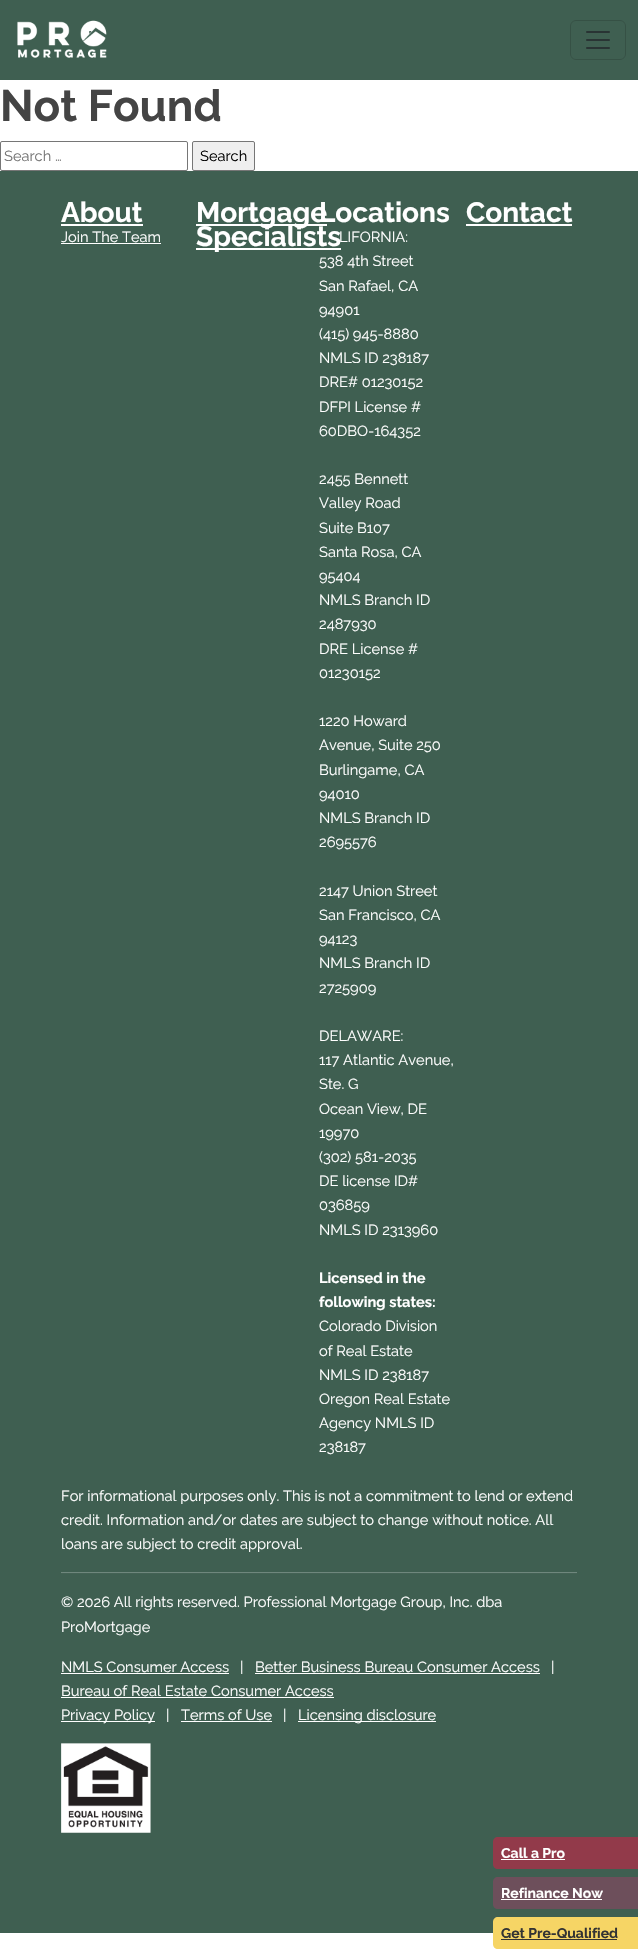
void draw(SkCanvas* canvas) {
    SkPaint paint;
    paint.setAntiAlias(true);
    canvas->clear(0xFFFFFFFF);
    paint.setColor(0xFF3F5F51);
    canvas->drawRect(SkRect::MakeXYWH(0, 0, 638, 80), paint);
    canvas->drawImageRect(SkImages::DeferredFromEncodedData(SkData::MakeFromFileName("img1.png")), SkRect::MakeXYWH(17, 20, 90, 38), SkSamplingOptions());
    paint.setStyle(SkPaint::kStroke_Style);
    paint.setStrokeWidth(1);
    paint.setColor(0xFF365145);
    canvas->drawRoundRect(SkRect::MakeXYWH(570.5f, 20.5f, 55, 39), 5.5f, 5.5f, paint);
    canvas->drawImageRect(SkImages::DeferredFromEncodedData(SkData::MakeFromFileName("img2.png")), SkRect::MakeXYWH(586, 31, 24, 18), SkSamplingOptions());
    SkFont font1(fontMgr->matchFamilyStyle("Raleway", SkFontStyle::Bold()), 44);
    font1.setSubpixel(true);
    paint.setStyle(SkPaint::kFill_Style);
    paint.setColor(0xFF444444);
    canvas->drawString("Not Found", 0, 121, font1, paint);
    paint.setStyle(SkPaint::kStroke_Style);
    paint.setColor(0xFF767676);
    canvas->drawRoundRect(SkRect::MakeXYWH(0.5f, 141.5f, 187, 29), 1.5f, 1.5f, paint);
    SkFont font2(fontMgr->matchFamilyStyle("Raleway", SkFontStyle::Normal()), 14.65f);
    font2.setSubpixel(true);
    paint.setStyle(SkPaint::kFill_Style);
    paint.setColor(0xFF757575);
    canvas->drawString("Search …", 4, 161, font2, paint);
    paint.setColor(0xFFEFEFEF);
    canvas->drawRoundRect(SkRect::MakeXYWH(192.5f, 141.5f, 62, 29), 1.5f, 1.5f, paint);
    paint.setStyle(SkPaint::kStroke_Style);
    paint.setColor(0xFF767676);
    canvas->drawRoundRect(SkRect::MakeXYWH(192.5f, 141.5f, 62, 29), 1.5f, 1.5f, paint);
    paint.setStyle(SkPaint::kFill_Style);
    paint.setColor(0xFF000000);
    canvas->drawString("Search", 200, 161, font2, paint);
    paint.setColor(0xFF3F5F51);
    canvas->drawRect(SkRect::MakeXYWH(0, 171, 638, 1762), paint);
    SkFont font3(fontMgr->matchFamilyStyle("Raleway", SkFontStyle::Bold()), 28);
    font3.setSubpixel(true);
    paint.setColor(0xFFFFFFFF);
    canvas->drawString("About", 61, 222, font3, paint);
    canvas->drawRect(SkRect::MakeXYWH(61, 224, 82, 2), paint);
    canvas->drawString("Join The Team", 61, 242, font2, paint);
    canvas->drawRect(SkRect::MakeXYWH(61, 243, 100, 1), paint);
    canvas->drawRect(SkRect::MakeXYWH(196, 224, 131, 2), paint);
    canvas->drawString("Mortgage", 196, 222, font3, paint);
    canvas->drawRect(SkRect::MakeXYWH(196, 248, 145, 2), paint);
    canvas->drawString("Specialists", 196, 246, font3, paint);
    canvas->drawString("Locations", 319, 222, font3, paint);
    canvas->drawString("LIFORNIA:", 339, 242, font2, paint);
    canvas->drawString("538 4th Street", 319, 266, font2, paint);
    canvas->drawString("San Rafael, CA", 319, 291, font2, paint);
    canvas->drawString("94901", 319, 315, font2, paint);
    canvas->drawString("(415) 945-8880", 319, 339, font2, paint);
    canvas->drawString("NMLS ID 238187", 319, 363, font2, paint);
    canvas->drawString("DRE# 01230152", 319, 387, font2, paint);
    canvas->drawString("DFPI License #", 319, 412, font2, paint);
    canvas->drawString("60DBO-164352", 319, 436, font2, paint);
    canvas->drawString("2455 Bennett", 319, 484, font2, paint);
    canvas->drawString("Valley Road", 319, 508, font2, paint);
    canvas->drawString("Suite B107", 319, 533, font2, paint);
    canvas->drawString("Santa Rosa, CA", 319, 557, font2, paint);
    canvas->drawString("95404", 319, 581, font2, paint);
    canvas->drawString("NMLS Branch ID", 319, 605, font2, paint);
    canvas->drawString("2487930", 319, 629, font2, paint);
    canvas->drawString("DRE License #", 319, 654, font2, paint);
    canvas->drawString("01230152", 319, 678, font2, paint);
    canvas->drawString("1220 Howard", 319, 726, font2, paint);
    canvas->drawString("Avenue, Suite 250", 319, 750, font2, paint);
    canvas->drawString("Burlingame, CA", 319, 775, font2, paint);
    canvas->drawString("94010", 319, 799, font2, paint);
    canvas->drawString("NMLS Branch ID", 319, 823, font2, paint);
    canvas->drawString("2695576", 319, 847, font2, paint);
    canvas->drawString("2147 Union Street", 319, 896, font2, paint);
    canvas->drawString("San Francisco, CA", 319, 920, font2, paint);
    canvas->drawString("94123", 319, 944, font2, paint);
    canvas->drawString("NMLS Branch ID", 319, 968, font2, paint);
    canvas->drawString("2725909", 319, 993, font2, paint);
    canvas->drawString("DELAWARE:", 319, 1041, font2, paint);
    canvas->drawString("117 Atlantic Avenue,", 319, 1065, font2, paint);
    canvas->drawString("Ste. G", 319, 1089, font2, paint);
    canvas->drawString("Ocean View, DE", 319, 1114, font2, paint);
    canvas->drawString("19970", 319, 1138, font2, paint);
    canvas->drawString("(302) 581-2035", 319, 1162, font2, paint);
    canvas->drawString("DE license ID#", 319, 1186, font2, paint);
    canvas->drawString("036859", 319, 1210, font2, paint);
    canvas->drawString("NMLS ID 2313960", 319, 1235, font2, paint);
    SkFont font4(fontMgr->matchFamilyStyle("Raleway", SkFontStyle::Bold()), 14.65f);
    font4.setSubpixel(true);
    canvas->drawString("Licensed in the", 319, 1283, font4, paint);
    canvas->drawString("following states:", 319, 1307, font4, paint);
    canvas->drawString("Colorado Division", 319, 1331, font2, paint);
    canvas->drawString("of Real Estate", 319, 1356, font2, paint);
    canvas->drawString("NMLS ID 238187", 319, 1380, font2, paint);
    canvas->drawString("Oregon Real Estate", 319, 1404, font2, paint);
    canvas->drawString("Agency NMLS ID", 319, 1428, font2, paint);
    canvas->drawString("238187", 319, 1452, font2, paint);
    canvas->drawString("Contact", 466, 222, font3, paint);
    canvas->drawRect(SkRect::MakeXYWH(466, 224, 106, 2), paint);
    canvas->drawString("For informational purposes only. This is not a commitment to lend or extend", 61, 1501, font2, paint);
    canvas->drawString("credit. Information and/or dates are subject to change without notice. All", 61, 1525, font2, paint);
    canvas->drawString("loans are subject to credit approval.", 61, 1549, font2, paint);
    paint.setColor(0xFF6F877D);
    canvas->drawRect(SkRect::MakeXYWH(61, 1572, 516, 1), paint);
    paint.setColor(0xFF446255);
    canvas->drawRect(SkRect::MakeXYWH(61, 1573, 516, 1), paint);
    paint.setColor(0xFFFFFFFF);
    canvas->drawString("© 2026 All rights reserved. Professional Mortgage Group, Inc. dba", 61, 1607, font2, paint);
    canvas->drawString("ProMortgage", 61, 1632, font2, paint);
    canvas->drawString("NMLS Consumer Access", 61, 1672, font2, paint);
    canvas->drawRect(SkRect::MakeXYWH(61, 1673, 168, 1), paint);
    canvas->drawString("|", 240, 1672, font2, paint);
    canvas->drawString("Better Business Bureau Consumer Access", 255, 1672, font2, paint);
    canvas->drawRect(SkRect::MakeXYWH(255, 1673, 285, 1), paint);
    canvas->drawString("|", 551, 1672, font2, paint);
    canvas->drawString("Bureau of Real Estate Consumer Access", 61, 1696, font2, paint);
    canvas->drawRect(SkRect::MakeXYWH(61, 1697, 273, 1), paint);
    canvas->drawRect(SkRect::MakeXYWH(61, 1721, 94, 1), paint);
    canvas->drawString("Privacy Policy", 61, 1720, font2, paint);
    canvas->drawString("|", 166, 1720, font2, paint);
    canvas->drawString("Terms of Use", 181, 1720, font2, paint);
    canvas->drawRect(SkRect::MakeXYWH(181, 1721, 91, 1), paint);
    canvas->drawString("|", 283, 1720, font2, paint);
    canvas->drawRect(SkRect::MakeXYWH(298, 1721, 138, 1), paint);
    canvas->drawString("Licensing disclosure", 298, 1720, font2, paint);
    canvas->drawImageRect(SkImages::DeferredFromEncodedData(SkData::MakeFromFileName("img3.png")), SkRect::MakeXYWH(61, 1743, 90, 90), SkSamplingOptions());
    paint.setColor(0xFF923A4A);
    canvas->drawPath(SkPathBuilder().moveTo(498, 1837).lineTo(638, 1837).lineTo(638, 1869).lineTo(498, 1869).cubicTo(495, 1869, 493, 1867, 493, 1864).lineTo(493, 1842).cubicTo(493, 1839, 495, 1837, 498, 1837).close().detach(), paint);
    SkFont font5(fontMgr->matchFamilyStyle("Raleway", SkFontStyle::Bold()), 14);
    font5.setSubpixel(true);
    paint.setColor(0xFFFFFFFF);
    canvas->drawString("Call a Pro", 501, 1858, font5, paint);
    canvas->drawRect(SkRect::MakeXYWH(501, 1859, 64, 1), paint);
    paint.setColor(0xFF6D4F5B);
    canvas->drawPath(SkPathBuilder().moveTo(498, 1877).lineTo(638, 1877).lineTo(638, 1909).lineTo(498, 1909).cubicTo(495, 1909, 493, 1907, 493, 1904).lineTo(493, 1882).cubicTo(493, 1879, 495, 1877, 498, 1877).close().detach(), paint);
    paint.setColor(0xFFFFFFFF);
    canvas->drawString("Refinance Now", 501, 1898, font5, paint);
    canvas->drawRect(SkRect::MakeXYWH(501, 1899, 101, 1), paint);
    paint.setColor(0xFFF6D565);
    canvas->drawPath(SkPathBuilder().moveTo(498, 1917).lineTo(638, 1917).lineTo(638, 1949).lineTo(498, 1949).cubicTo(495, 1949, 493, 1947, 493, 1944).lineTo(493, 1922).cubicTo(493, 1919, 495, 1917, 498, 1917).close().detach(), paint);
    paint.setColor(0xFF333333);
    canvas->drawString("Get Pre-Qualified", 501, 1938, font5, paint);
    canvas->drawRect(SkRect::MakeXYWH(501, 1939, 116, 1), paint);
}
